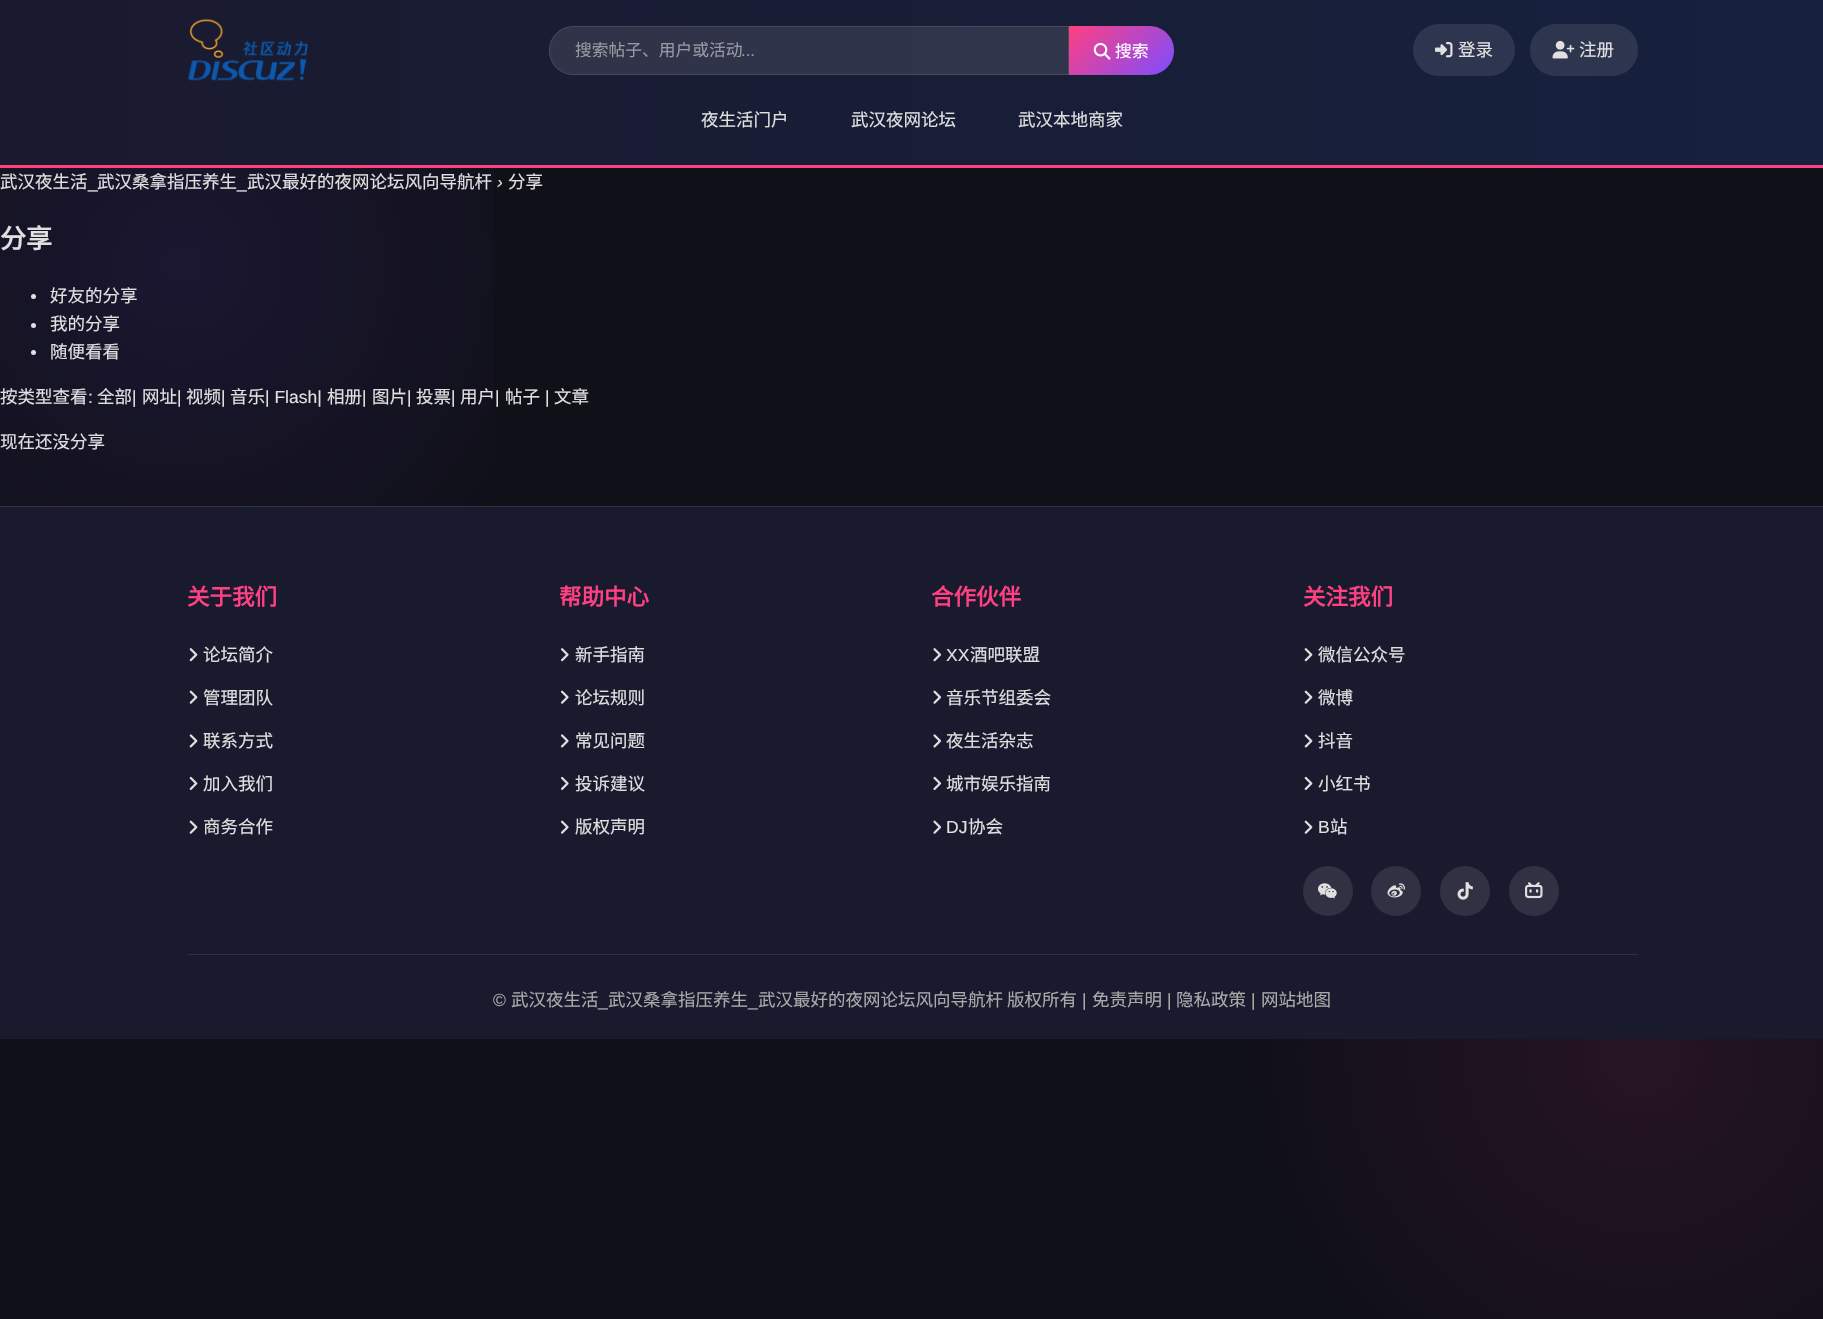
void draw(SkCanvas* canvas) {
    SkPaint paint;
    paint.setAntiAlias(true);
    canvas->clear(0xFFFFFFFF);
    {
        const SkColor colors[] = {0xFF271423, 0xFF101019};
        const float stops[] = {0, 0.2f};
        paint.setShader(SkGradientShader::MakeRadial({1641, 1056}, 1952, colors, stops, 2, SkTileMode::kClamp));
        paint.setAlpha(255);
    }
    canvas->drawRect(SkRect::MakeXYWH(0, 168, 1823, 1151), paint);
    {
        const SkColor colors[] = {0x1A7C4DFF, 0x007C4DFF};
        const float stops[] = {0, 0.2f};
        paint.setShader(SkGradientShader::MakeRadial({182, 264}, 1952, colors, stops, 2, SkTileMode::kClamp));
        paint.setAlpha(255);
    }
    canvas->drawRect(SkRect::MakeXYWH(0, 168, 494, 338), paint);
    {
        const SkColor colors[] = {0xFF1A1A2E, 0xFF16213E};
        const float stops[] = {0, 1};
        const SkPoint ends[] = {{0, 83}, {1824, 82}};
        paint.setShader(SkGradientShader::MakeLinear(ends, colors, stops, 2, SkTileMode::kClamp));
        paint.setAlpha(255);
    }
    canvas->drawRect(SkRect::MakeXYWH(0, 0, 1823, 165), paint);
    paint.setShader(nullptr);
    paint.setColor(0xFFFF4081);
    canvas->drawRect(SkRect::MakeXYWH(0, 165, 1823, 3), paint);
    canvas->drawImageRect(SkImages::DeferredFromEncodedData(SkData::MakeFromFileName("img1.png")), SkRect::MakeXYWH(188, 18, 120, 63), SkSamplingOptions());
    paint.setColor(0x1AFFFFFF);
    canvas->drawPath(SkPathBuilder().moveTo(573.5f, 26).lineTo(1069, 26).lineTo(1069, 75).lineTo(573.5f, 75).cubicTo(560, 75, 549, 64, 549, 50.5f).cubicTo(549, 37, 560, 26, 573.5f, 26).close().detach(), paint);
    paint.setStyle(SkPaint::kStroke_Style);
    paint.setStrokeWidth(1);
    canvas->drawPath(SkPathBuilder().moveTo(573.5f, 26.5f).lineTo(1068.5f, 26.5f).lineTo(1068.5f, 74.5f).lineTo(573.5f, 74.5f).cubicTo(560, 74.5f, 549.5f, 64, 549.5f, 50.5f).cubicTo(549.5f, 37, 560, 26.5f, 573.5f, 26.5f).close().detach(), paint);
    SkFont font1(fontMgr->matchFamilyStyle("Noto Sans CJK SC", SkFontStyle::Normal()), 16.75f);
    font1.setSubpixel(true);
    paint.setStyle(SkPaint::kFill_Style);
    paint.setColor(0xFF9799A3);
    canvas->drawString("搜索帖子、用户或活动", 575, 56, font1, paint);
    SkFont font2(fontMgr->matchFamilyStyle("Liberation Sans", SkFontStyle::Normal()), 16.75f);
    font2.setSubpixel(true);
    canvas->drawString("...", 741, 56, font2, paint);
    {
        const SkColor colors[] = {0xFFFF4081, 0xFF7C4DFF};
        const float stops[] = {0, 1};
        const SkPoint ends[] = {{1083, 12}, {1160, 89}};
        paint.setShader(SkGradientShader::MakeLinear(ends, colors, stops, 2, SkTileMode::kClamp));
        paint.setAlpha(255);
    }
    canvas->drawPath(SkPathBuilder().moveTo(1069, 26).lineTo(1149.5f, 26).cubicTo(1163, 26, 1174, 37, 1174, 50.5f).cubicTo(1174, 64, 1163, 75, 1149.5f, 75).lineTo(1069, 75).close().detach(), paint);
    canvas->drawImageRect(SkImages::DeferredFromEncodedData(SkData::MakeFromFileName("img2.png")), SkRect::MakeXYWH(1093, 42, 18, 18), SkSamplingOptions());
    paint.setShader(nullptr);
    paint.setColor(0xFFFFFFFF);
    canvas->drawString("搜索", 1115, 57, font1, paint);
    paint.setColor(0xFF2E364F);
    canvas->drawRoundRect(SkRect::MakeXYWH(1413, 24, 102, 52), 26, 26, paint);
    canvas->drawImageRect(SkImages::DeferredFromEncodedData(SkData::MakeFromFileName("img3.png")), SkRect::MakeXYWH(1435, 42, 18, 16), SkSamplingOptions());
    SkFont font3(fontMgr->matchFamilyStyle("Noto Sans CJK SC", SkFontStyle::Normal()), 17.5f);
    font3.setSubpixel(true);
    paint.setColor(0xFFE0E0E0);
    canvas->drawString("登录", 1458, 56, font3, paint);
    paint.setColor(0xFF2E364F);
    canvas->drawRoundRect(SkRect::MakeXYWH(1530, 24, 108, 52), 26, 26, paint);
    canvas->drawImageRect(SkImages::DeferredFromEncodedData(SkData::MakeFromFileName("img4.png")), SkRect::MakeXYWH(1552, 40, 23, 19), SkSamplingOptions());
    paint.setColor(0xFFE0E0E0);
    canvas->drawString("注册", 1579, 56, font3, paint);
    canvas->drawString("夜生活门户", 701, 126, font3, paint);
    canvas->drawString("武汉夜网论坛", 851, 126, font3, paint);
    canvas->drawString("武汉本地商家", 1018, 126, font3, paint);
    canvas->drawString("武汉夜生活", 0, 188, font3, paint);
    canvas->drawString("武汉桑拿指压养生", 97, 188, font3, paint);
    canvas->drawString("武汉最好的夜网论坛风向导航杆", 247, 188, font3, paint);
    SkFont font4(fontMgr->matchFamilyStyle("Liberation Sans", SkFontStyle::Italic()), 17.5f);
    font4.setSubpixel(true);
    canvas->drawString("›", 497, 188, font4, paint);
    canvas->drawString("分享", 508, 188, font3, paint);
    SkFont font5(fontMgr->matchFamilyStyle("Liberation Sans", SkFontStyle::Normal()), 17.5f);
    font5.setSubpixel(true);
    canvas->drawString("_", 88, 188, font5, paint);
    canvas->drawString("_", 237, 188, font5, paint);
    SkFont font6(fontMgr->matchFamilyStyle("Noto Sans CJK SC", SkFontStyle::Bold()), 26);
    font6.setSubpixel(true);
    canvas->drawString("分享", 0, 248, font6, paint);
    canvas->drawCircle(33.5f, 296.5f, 2.5f, paint);
    canvas->drawString("好友的分享", 50, 302, font3, paint);
    canvas->drawCircle(33.5f, 325.5f, 2.5f, paint);
    canvas->drawString("我的分享", 50, 330, font3, paint);
    canvas->drawCircle(33.5f, 352.5f, 2.5f, paint);
    canvas->drawString("随便看看", 50, 358, font3, paint);
    canvas->drawString("按类型查看", 0, 403, font3, paint);
    canvas->drawString(":", 88, 403, font5, paint);
    canvas->drawString("全部", 97, 403, font3, paint);
    canvas->drawString("|", 132, 403, font5, paint);
    canvas->drawString("网址", 142, 403, font3, paint);
    canvas->drawString("|", 177, 403, font5, paint);
    canvas->drawString("视频", 186, 403, font3, paint);
    canvas->drawString("|", 221, 403, font5, paint);
    canvas->drawString("音乐", 230, 403, font3, paint);
    canvas->drawString("| Flash|", 265, 403, font5, paint);
    canvas->drawString("相册", 327, 403, font3, paint);
    canvas->drawString("|", 362, 403, font5, paint);
    canvas->drawString("图片", 372, 403, font3, paint);
    canvas->drawString("|", 407, 403, font5, paint);
    canvas->drawString("投票", 416, 403, font3, paint);
    canvas->drawString("|", 451, 403, font5, paint);
    canvas->drawString("用户", 460, 403, font3, paint);
    canvas->drawString("|", 495, 403, font5, paint);
    canvas->drawString("帖子", 505, 403, font3, paint);
    canvas->drawString("|", 545, 403, font5, paint);
    canvas->drawString("文章", 554, 403, font3, paint);
    canvas->drawString("现在还没分享", 0, 448, font3, paint);
    paint.setColor(0xFF1A1A2E);
    canvas->drawRect(SkRect::MakeXYWH(0, 507, 1823, 532), paint);
    paint.setColor(0xFF313143);
    canvas->drawRect(SkRect::MakeXYWH(0, 506, 1823, 1), paint);
    SkFont font7(fontMgr->matchFamilyStyle("Noto Sans CJK SC", SkFontStyle::Bold()), 22.5f);
    font7.setSubpixel(true);
    paint.setColor(0xFFFF4081);
    canvas->drawString("关于我们", 187, 605, font7, paint);
    canvas->drawImageRect(SkImages::DeferredFromEncodedData(SkData::MakeFromFileName("img5.png")), SkRect::MakeXYWH(189, 648, 9, 14), SkSamplingOptions());
    paint.setColor(0xFFE0E0E0);
    canvas->drawString("论坛简介", 203, 661, font3, paint);
    canvas->drawImageRect(SkImages::DeferredFromEncodedData(SkData::MakeFromFileName("img6.png")), SkRect::MakeXYWH(189, 690, 9, 14), SkSamplingOptions());
    canvas->drawString("管理团队", 203, 704, font3, paint);
    canvas->drawImageRect(SkImages::DeferredFromEncodedData(SkData::MakeFromFileName("img7.png")), SkRect::MakeXYWH(189, 734, 9, 14), SkSamplingOptions());
    canvas->drawString("联系方式", 203, 747, font3, paint);
    canvas->drawImageRect(SkImages::DeferredFromEncodedData(SkData::MakeFromFileName("img8.png")), SkRect::MakeXYWH(189, 776, 9, 14), SkSamplingOptions());
    canvas->drawString("加入我们", 203, 790, font3, paint);
    canvas->drawImageRect(SkImages::DeferredFromEncodedData(SkData::MakeFromFileName("img6.png")), SkRect::MakeXYWH(189, 820, 9, 14), SkSamplingOptions());
    canvas->drawString("商务合作", 203, 833, font3, paint);
    paint.setColor(0xFFFF4081);
    canvas->drawString("帮助中心", 559, 605, font7, paint);
    canvas->drawImageRect(SkImages::DeferredFromEncodedData(SkData::MakeFromFileName("img9.png")), SkRect::MakeXYWH(561, 648, 8, 14), SkSamplingOptions());
    paint.setColor(0xFFE0E0E0);
    canvas->drawString("新手指南", 575, 661, font3, paint);
    canvas->drawImageRect(SkImages::DeferredFromEncodedData(SkData::MakeFromFileName("img10.png")), SkRect::MakeXYWH(560, 690, 9, 14), SkSamplingOptions());
    canvas->drawString("论坛规则", 575, 704, font3, paint);
    canvas->drawImageRect(SkImages::DeferredFromEncodedData(SkData::MakeFromFileName("img11.png")), SkRect::MakeXYWH(560, 734, 9, 14), SkSamplingOptions());
    canvas->drawString("常见问题", 575, 747, font3, paint);
    canvas->drawImageRect(SkImages::DeferredFromEncodedData(SkData::MakeFromFileName("img12.png")), SkRect::MakeXYWH(561, 776, 8, 14), SkSamplingOptions());
    canvas->drawString("投诉建议", 575, 790, font3, paint);
    canvas->drawImageRect(SkImages::DeferredFromEncodedData(SkData::MakeFromFileName("img10.png")), SkRect::MakeXYWH(560, 820, 9, 14), SkSamplingOptions());
    canvas->drawString("版权声明", 575, 833, font3, paint);
    paint.setColor(0xFFFF4081);
    canvas->drawString("合作伙伴", 931, 605, font7, paint);
    canvas->drawImageRect(SkImages::DeferredFromEncodedData(SkData::MakeFromFileName("img13.png")), SkRect::MakeXYWH(933, 648, 9, 14), SkSamplingOptions());
    paint.setColor(0xFFE0E0E0);
    canvas->drawString("XX", 946, 661, font5, paint);
    canvas->drawString("酒吧联盟", 970, 661, font3, paint);
    canvas->drawImageRect(SkImages::DeferredFromEncodedData(SkData::MakeFromFileName("img14.png")), SkRect::MakeXYWH(933, 690, 9, 14), SkSamplingOptions());
    canvas->drawString("音乐节组委会", 946, 704, font3, paint);
    canvas->drawImageRect(SkImages::DeferredFromEncodedData(SkData::MakeFromFileName("img15.png")), SkRect::MakeXYWH(933, 734, 9, 14), SkSamplingOptions());
    canvas->drawString("夜生活杂志", 946, 747, font3, paint);
    canvas->drawImageRect(SkImages::DeferredFromEncodedData(SkData::MakeFromFileName("img16.png")), SkRect::MakeXYWH(933, 776, 9, 14), SkSamplingOptions());
    canvas->drawString("城市娱乐指南", 946, 790, font3, paint);
    canvas->drawImageRect(SkImages::DeferredFromEncodedData(SkData::MakeFromFileName("img14.png")), SkRect::MakeXYWH(933, 820, 9, 14), SkSamplingOptions());
    canvas->drawString("DJ", 946, 833, font5, paint);
    canvas->drawString("协会", 968, 833, font3, paint);
    paint.setColor(0xFFFF4081);
    canvas->drawString("关注我们", 1303, 605, font7, paint);
    canvas->drawImageRect(SkImages::DeferredFromEncodedData(SkData::MakeFromFileName("img5.png")), SkRect::MakeXYWH(1304, 648, 9, 14), SkSamplingOptions());
    paint.setColor(0xFFE0E0E0);
    canvas->drawString("微信公众号", 1318, 661, font3, paint);
    canvas->drawImageRect(SkImages::DeferredFromEncodedData(SkData::MakeFromFileName("img6.png")), SkRect::MakeXYWH(1304, 690, 9, 14), SkSamplingOptions());
    canvas->drawString("微博", 1318, 704, font3, paint);
    canvas->drawImageRect(SkImages::DeferredFromEncodedData(SkData::MakeFromFileName("img7.png")), SkRect::MakeXYWH(1304, 734, 9, 14), SkSamplingOptions());
    canvas->drawString("抖音", 1318, 747, font3, paint);
    canvas->drawImageRect(SkImages::DeferredFromEncodedData(SkData::MakeFromFileName("img8.png")), SkRect::MakeXYWH(1304, 776, 9, 14), SkSamplingOptions());
    canvas->drawString("小红书", 1318, 790, font3, paint);
    canvas->drawImageRect(SkImages::DeferredFromEncodedData(SkData::MakeFromFileName("img6.png")), SkRect::MakeXYWH(1304, 820, 9, 14), SkSamplingOptions());
    canvas->drawString("B", 1318, 833, font5, paint);
    canvas->drawString("站", 1330, 833, font3, paint);
    paint.setColor(0xFF313143);
    canvas->drawCircle(1328, 891, 25, paint);
    canvas->drawImageRect(SkImages::DeferredFromEncodedData(SkData::MakeFromFileName("img17.png")), SkRect::MakeXYWH(1318, 883, 19, 16), SkSamplingOptions());
    canvas->drawCircle(1396, 891, 25, paint);
    canvas->drawImageRect(SkImages::DeferredFromEncodedData(SkData::MakeFromFileName("img18.png")), SkRect::MakeXYWH(1387, 883, 18, 15), SkSamplingOptions());
    canvas->drawCircle(1465, 891, 25, paint);
    canvas->drawImageRect(SkImages::DeferredFromEncodedData(SkData::MakeFromFileName("img19.png")), SkRect::MakeXYWH(1457, 882, 16, 18), SkSamplingOptions());
    canvas->drawCircle(1534, 891, 25, paint);
    canvas->drawImageRect(SkImages::DeferredFromEncodedData(SkData::MakeFromFileName("img20.png")), SkRect::MakeXYWH(1525, 882, 18, 17), SkSamplingOptions());
    canvas->drawRect(SkRect::MakeXYWH(188, 954, 1450, 1), paint);
    paint.setColor(0xFFAAAAAA);
    canvas->drawString("©", 493, 1006, font5, paint);
    canvas->drawString("武汉夜生活", 511, 1006, font3, paint);
    canvas->drawString("_", 598, 1006, font5, paint);
    canvas->drawString("武汉桑拿指压养生", 608, 1006, font3, paint);
    canvas->drawString("_", 748, 1006, font5, paint);
    canvas->drawString("武汉最好的夜网论坛风向导航杆 版权所有", 758, 1006, font3, paint);
    canvas->drawString("|", 1082, 1006, font5, paint);
    canvas->drawString("免责声明", 1092, 1006, font3, paint);
    canvas->drawString("|", 1167, 1006, font5, paint);
    canvas->drawString("隐私政策", 1176, 1006, font3, paint);
    canvas->drawString("|", 1251, 1006, font5, paint);
    canvas->drawString("网站地图", 1261, 1006, font3, paint);
}
